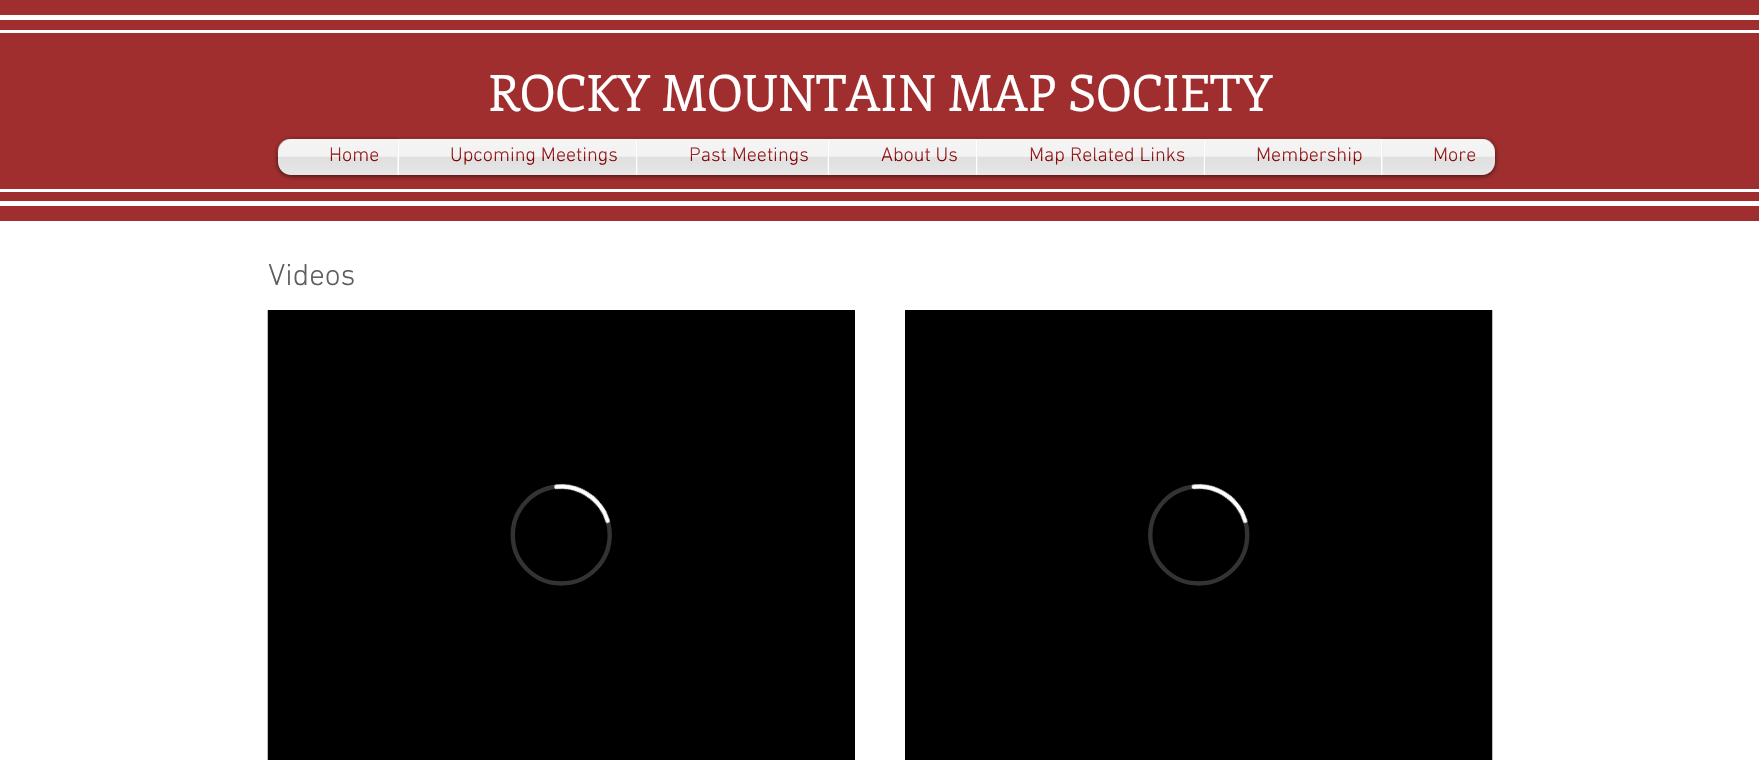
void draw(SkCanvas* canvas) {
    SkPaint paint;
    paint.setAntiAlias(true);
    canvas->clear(0xFFFFFFFF);
    paint.setColor(0xFFA02E2E);
    canvas->drawRect(SkRect::MakeXYWH(0, 0, 1759, 221), paint);
    paint.setColor(0xFFFFFFFF);
    canvas->drawRect(SkRect::MakeXYWH(0, 15, 1759, 5), paint);
    canvas->drawRect(SkRect::MakeXYWH(0, 201, 1759, 5), paint);
    canvas->drawRect(SkRect::MakeXYWH(0, 30, 1759, 3), paint);
    canvas->drawRect(SkRect::MakeXYWH(0, 189, 1759, 3), paint);
    SkFont font1(fontMgr->matchFamilyStyle("Enriqueta", SkFontStyle::Normal()), 50);
    font1.setSubpixel(true);
    canvas->drawString("ROCKY MOUNTAIN MAP SOCIETY", 488, 111, font1, paint);
    paint.setColor(0x99000000);
    paint.setMaskFilter(SkMaskFilter::MakeBlur(kNormal_SkBlurStyle, 2.5f));
    canvas->drawRoundRect(SkRect::MakeXYWH(278, 140, 1217, 36), 13, 13, paint);
    paint.setMaskFilter(nullptr);
    canvas->drawImageRect(SkImages::DeferredFromEncodedData(SkData::MakeFromFileName("img1.png")), SkRect::MakeXYWH(277, 139, 1218, 36), SkSamplingOptions());
    paint.setColor(0xFFF1F1F1);
    canvas->drawPath(SkPathBuilder().moveTo(291, 139).lineTo(398, 139).lineTo(398, 175).lineTo(291, 175).cubicTo(284, 175, 278, 169, 278, 162).lineTo(278, 152).cubicTo(278, 145, 284, 139, 291, 139).close().detach(), paint);
    SkFont font2(fontMgr->matchFamilyStyle("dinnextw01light", SkFontStyle(300, SkFontStyle::kNormal_Width, SkFontStyle::kUpright_Slant)), 20);
    font2.setSubpixel(true);
    paint.setColor(0xFF8B0000);
    canvas->drawString("Home", 329, 161, font2, paint);
    canvas->drawImageRect(SkImages::DeferredFromEncodedData(SkData::MakeFromFileName("img2.png")), SkRect::MakeXYWH(277, 139, 120, 36), SkSamplingOptions());
    paint.setColor(0xFFF1F1F1);
    canvas->drawRect(SkRect::MakeXYWH(399, 139, 237, 36), paint);
    paint.setColor(0xFFFFFFFF);
    canvas->drawRect(SkRect::MakeXYWH(398, 139, 1, 36), paint);
    paint.setColor(0xFF8B0000);
    canvas->drawString("Upcoming Meetings", 450, 161, font2, paint);
    canvas->drawImageRect(SkImages::DeferredFromEncodedData(SkData::MakeFromFileName("img3.png")), SkRect::MakeXYWH(399, 138, 237, 37), SkSamplingOptions());
    paint.setColor(0xFFF1F1F1);
    canvas->drawRect(SkRect::MakeXYWH(637, 139, 191, 36), paint);
    paint.setColor(0xFFFFFFFF);
    canvas->drawRect(SkRect::MakeXYWH(636, 139, 1, 36), paint);
    paint.setColor(0xFF8B0000);
    canvas->drawString("Past Meetings", 689, 161, font2, paint);
    canvas->drawImageRect(SkImages::DeferredFromEncodedData(SkData::MakeFromFileName("img4.png")), SkRect::MakeXYWH(637, 138, 191, 37), SkSamplingOptions());
    paint.setColor(0xFFF1F1F1);
    canvas->drawRect(SkRect::MakeXYWH(829, 139, 147, 36), paint);
    paint.setColor(0xFFFFFFFF);
    canvas->drawRect(SkRect::MakeXYWH(828, 139, 1, 36), paint);
    paint.setColor(0xFF8B0000);
    canvas->drawString("About Us", 881, 161, font2, paint);
    canvas->drawImageRect(SkImages::DeferredFromEncodedData(SkData::MakeFromFileName("img5.png")), SkRect::MakeXYWH(829, 138, 147, 37), SkSamplingOptions());
    paint.setColor(0xFFF1F1F1);
    canvas->drawRect(SkRect::MakeXYWH(977, 139, 227, 36), paint);
    paint.setColor(0xFFFFFFFF);
    canvas->drawRect(SkRect::MakeXYWH(976, 139, 1, 36), paint);
    paint.setColor(0xFF8B0000);
    canvas->drawString("Map Related Links", 1029, 161, font2, paint);
    canvas->drawImageRect(SkImages::DeferredFromEncodedData(SkData::MakeFromFileName("img6.png")), SkRect::MakeXYWH(977, 138, 227, 37), SkSamplingOptions());
    paint.setColor(0xFFF1F1F1);
    canvas->drawRect(SkRect::MakeXYWH(1205, 139, 176, 36), paint);
    paint.setColor(0xFFFFFFFF);
    canvas->drawRect(SkRect::MakeXYWH(1204, 139, 1, 36), paint);
    paint.setColor(0xFF8B0000);
    canvas->drawString("Membership", 1256, 161, font2, paint);
    canvas->drawImageRect(SkImages::DeferredFromEncodedData(SkData::MakeFromFileName("img7.png")), SkRect::MakeXYWH(1205, 138, 176, 37), SkSamplingOptions());
    paint.setColor(0xFFF1F1F1);
    canvas->drawPath(SkPathBuilder().moveTo(1381, 139).lineTo(1482, 139).cubicTo(1489, 139, 1495, 145, 1495, 152).lineTo(1495, 162).cubicTo(1495, 169, 1489, 175, 1482, 175).lineTo(1381, 175).close().detach(), paint);
    paint.setColor(0xFFFFFFFF);
    canvas->drawRect(SkRect::MakeXYWH(1381, 139, 1, 36), paint);
    paint.setColor(0xFF8B0000);
    canvas->drawString("More", 1433, 161, font2, paint);
    canvas->drawImageRect(SkImages::DeferredFromEncodedData(SkData::MakeFromFileName("img8.png")), SkRect::MakeXYWH(1383, 139, 112, 36), SkSamplingOptions());
    SkFont font3(fontMgr->matchFamilyStyle("dinnextw01light", SkFontStyle(300, SkFontStyle::kNormal_Width, SkFontStyle::kUpright_Slant)), 31);
    font3.setSubpixel(true);
    paint.setColor(0xFF605E5E);
    canvas->drawString("Videos", 268, 285, font3, paint);
    canvas->drawImageRect(SkImages::DeferredFromEncodedData(SkData::MakeFromFileName("img9.png")), SkRect::MakeXYWH(267, 310, 588, 450), SkSamplingOptions());
    canvas->drawImageRect(SkImages::DeferredFromEncodedData(SkData::MakeFromFileName("img10.png")), SkRect::MakeXYWH(905, 310, 588, 450), SkSamplingOptions());
}
